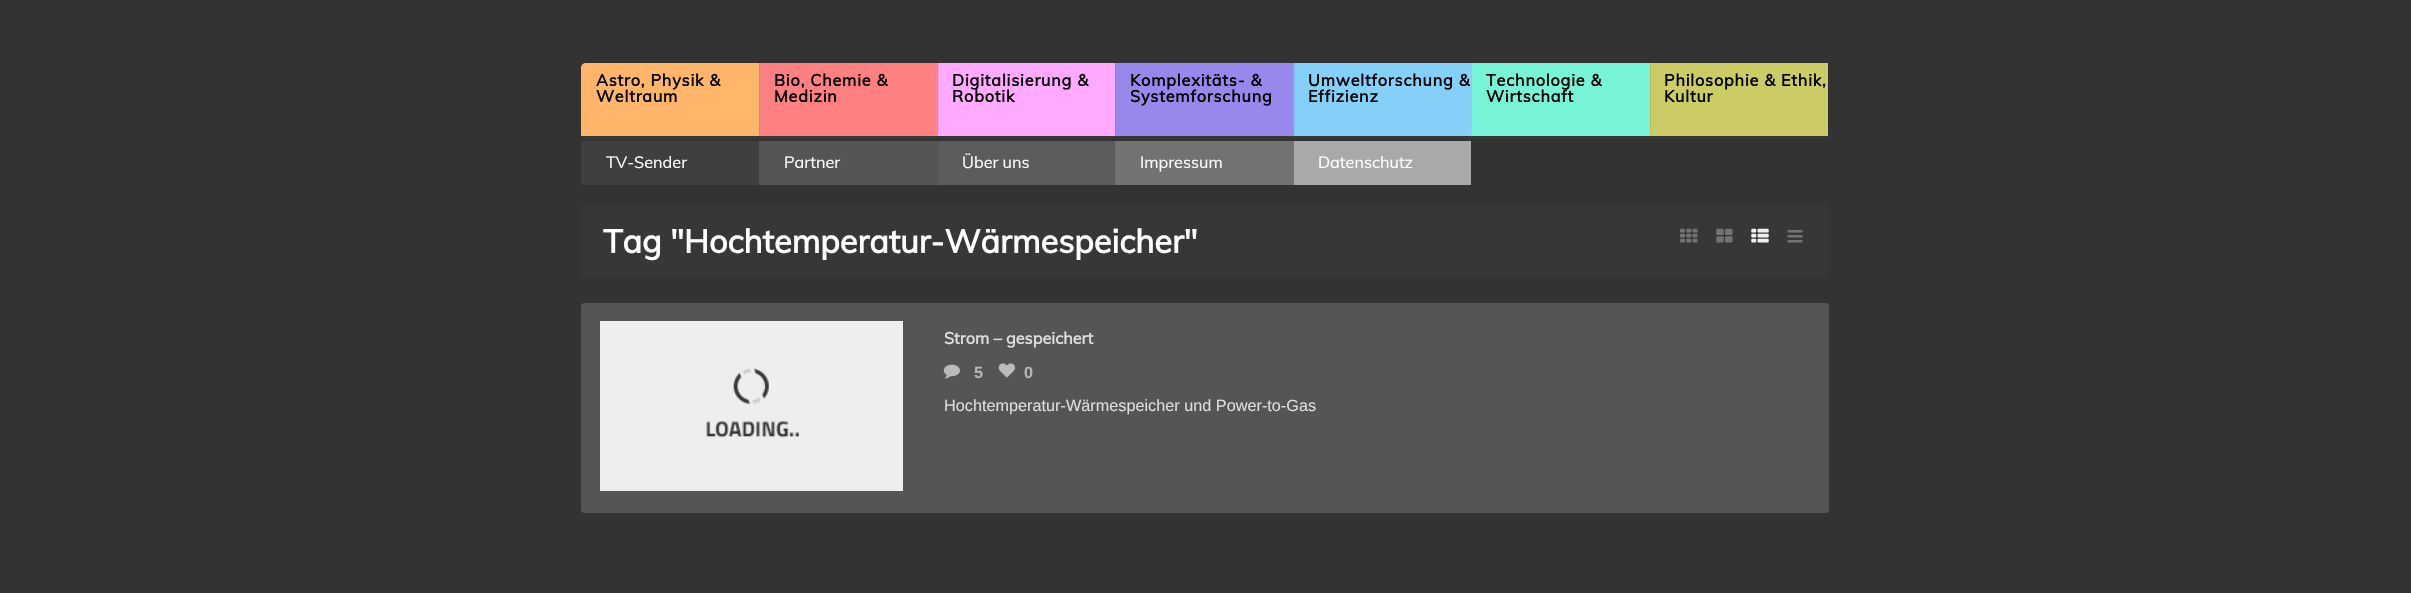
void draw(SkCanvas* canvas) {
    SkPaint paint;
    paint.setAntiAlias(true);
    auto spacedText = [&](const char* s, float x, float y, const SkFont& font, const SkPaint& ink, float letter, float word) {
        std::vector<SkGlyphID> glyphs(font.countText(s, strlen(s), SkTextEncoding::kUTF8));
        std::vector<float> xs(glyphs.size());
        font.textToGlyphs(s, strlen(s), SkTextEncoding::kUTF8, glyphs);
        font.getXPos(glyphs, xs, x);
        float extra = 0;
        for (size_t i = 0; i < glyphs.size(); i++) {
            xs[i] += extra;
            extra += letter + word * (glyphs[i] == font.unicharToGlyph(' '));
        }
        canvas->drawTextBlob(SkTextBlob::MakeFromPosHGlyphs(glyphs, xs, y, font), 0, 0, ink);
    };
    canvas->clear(0xFF333333);
    paint.setColor(0xFF373737);
    canvas->drawPath(SkPathBuilder().moveTo(581, 131).lineTo(581, 135).cubicTo(581, 137, 583, 139, 585, 139).lineTo(1827, 139).cubicTo(1829, 139, 1831, 137, 1831, 135).lineTo(1831, 131).cubicTo(1831, 133, 1830, 135, 1828, 135).lineTo(585, 135).cubicTo(583, 135, 581, 133, 581, 131).close().detach(), paint);
    canvas->save();
    canvas->clipPath(SkPathBuilder().moveTo(585, 63).lineTo(1827, 63).cubicTo(1829, 63, 1831, 65, 1831, 67).lineTo(1831, 135).cubicTo(1831, 137, 1829, 139, 1827, 139).lineTo(585, 139).cubicTo(583, 139, 581, 137, 581, 135).lineTo(581, 67).cubicTo(581, 65, 583, 63, 585, 63).close().detach(), true);
    paint.setColor(0xFFFFB56A);
    canvas->drawPath(SkPathBuilder().moveTo(585, 63).lineTo(759, 63).lineTo(759, 136).lineTo(581, 136).lineTo(581, 67).cubicTo(581, 65, 583, 63, 585, 63).close().detach(), paint);
    canvas->restore();
    SkFont font1(fontMgr->matchFamilyStyle("Muli", SkFontStyle::Bold()), 16.25f);
    font1.setSubpixel(true);
    paint.setColor(0xFF000000);
    spacedText("Astro, Physik &", 596, 86, font1, paint, 0.8f, 0);
    paint.setColor(0xFFFF8080);
    canvas->drawRect(SkRect::MakeXYWH(759, 63, 179, 73), paint);
    paint.setColor(0xFFEB7676);
    canvas->drawRect(SkRect::MakeXYWH(759, 63, 1, 70), paint);
    paint.setColor(0xFFFFBB76);
    canvas->drawRect(SkRect::MakeXYWH(758, 63, 1, 70), paint);
    paint.setColor(0xFF000000);
    spacedText("Weltraum", 596, 102, font1, paint, 0.8f, 0);
    spacedText("Bio, Chemie &", 774, 86, font1, paint, 0.8f, 0);
    paint.setColor(0xFFFFAAFF);
    canvas->drawRect(SkRect::MakeXYWH(938, 63, 177, 73), paint);
    paint.setColor(0xFFEB9CEB);
    canvas->drawRect(SkRect::MakeXYWH(938, 63, 1, 70), paint);
    paint.setColor(0xFFFF8A8A);
    canvas->drawRect(SkRect::MakeXYWH(936, 63, 1, 70), paint);
    paint.setColor(0xFF000000);
    spacedText("Medizin", 774, 102, font1, paint, 0.8f, 0);
    spacedText("Digitalisierung &", 952, 86, font1, paint, 0.8f, 0);
    paint.setColor(0xFF9988EC);
    canvas->drawRect(SkRect::MakeXYWH(1115, 63, 179, 73), paint);
    paint.setColor(0xFF8D7DD9);
    canvas->drawRect(SkRect::MakeXYWH(1115, 63, 1, 70), paint);
    paint.setColor(0xFFFFB1FF);
    canvas->drawRect(SkRect::MakeXYWH(1114, 63, 1, 70), paint);
    paint.setColor(0xFF000000);
    spacedText("Robotik", 952, 102, font1, paint, 0.8f, 0);
    spacedText("Komplexitäts- &", 1130, 86, font1, paint, 0.8f, 0);
    paint.setColor(0xFF84D0F9);
    canvas->drawRect(SkRect::MakeXYWH(1294, 63, 177, 73), paint);
    paint.setColor(0xFF79BFE5);
    canvas->drawRect(SkRect::MakeXYWH(1294, 63, 1, 70), paint);
    paint.setColor(0xFFA192EE);
    canvas->drawRect(SkRect::MakeXYWH(1293, 63, 1, 70), paint);
    paint.setColor(0xFF000000);
    spacedText("Systemforschung", 1130, 102, font1, paint, 0.8f, 0);
    paint.setColor(0xFF77F4D8);
    canvas->drawRect(SkRect::MakeXYWH(1471, 63, 179, 73), paint);
    paint.setColor(0xFF6DE0C7);
    canvas->drawPath(SkPathBuilder().moveTo(1471, 132).lineTo(1471, 133).lineTo(1472, 133).lineTo(1472, 63).lineTo(1471, 63).close().detach(), paint);
    paint.setColor(0xFF000000);
    spacedText("Umweltforschung &", 1308, 86, font1, paint, 0.8f, 0);
    paint.setColor(0xFF8ED4F9);
    canvas->drawRect(SkRect::MakeXYWH(1470, 63, 1, 70), paint);
    paint.setColor(0xFF000000);
    spacedText("Effizienz", 1308, 102, font1, paint, 0.8f, 0);
    spacedText("Technologie &", 1486, 86, font1, paint, 0.8f, 0);
    paint.setColor(0xFFCCCC66);
    canvas->drawRect(SkRect::MakeXYWH(1650, 63, 178, 73), paint);
    paint.setColor(0xFFBCBC5E);
    canvas->drawRect(SkRect::MakeXYWH(1650, 63, 1, 70), paint);
    paint.setColor(0xFF82F5DB);
    canvas->drawRect(SkRect::MakeXYWH(1649, 63, 1, 70), paint);
    paint.setColor(0xFF000000);
    spacedText("Wirtschaft", 1486, 102, font1, paint, 0.8f, 0);
    spacedText("Philosophie & Ethik,", 1664, 86, font1, paint, 0.8f, 0);
    paint.setColor(0xFF2F2F2F);
    canvas->drawPath(SkPathBuilder().moveTo(1828, 63).lineTo(1828, 133).lineTo(1829, 133).lineTo(1829, 64).close().detach(), paint);
    paint.setColor(0xFFD0D072);
    canvas->drawRect(SkRect::MakeXYWH(1826, 63, 1, 70), paint);
    paint.setColor(0xFF000000);
    spacedText("Kultur", 1664, 102, font1, paint, 0.8f, 0);
    paint.setColor(0xFF3F3F3F);
    canvas->drawRect(SkRect::MakeXYWH(581, 141, 178, 44), paint);
    SkFont font2(fontMgr->matchFamilyStyle("Muli", SkFontStyle::Normal()), 16.25f);
    font2.setSubpixel(true);
    paint.setColor(0xFFFFFFFF);
    canvas->drawString("TV-Sender", 606, 168, font2, paint);
    paint.setColor(0xFF555555);
    canvas->drawRect(SkRect::MakeXYWH(759, 141, 179, 44), paint);
    paint.setColor(0xFFFFFFFF);
    canvas->drawString("Partner", 784, 168, font2, paint);
    paint.setColor(0xFF5C5C5C);
    canvas->drawRect(SkRect::MakeXYWH(938, 141, 177, 44), paint);
    paint.setColor(0xFFFFFFFF);
    canvas->drawString("Über uns", 962, 168, font2, paint);
    paint.setColor(0xFF727272);
    canvas->drawRect(SkRect::MakeXYWH(1115, 141, 179, 44), paint);
    paint.setColor(0xFFFFFFFF);
    canvas->drawString("Impressum", 1140, 168, font2, paint);
    paint.setColor(0xFFA9A9A9);
    canvas->drawRect(SkRect::MakeXYWH(1294, 141, 177, 44), paint);
    paint.setColor(0xFFFFFFFF);
    canvas->drawString("Datenschutz", 1318, 168, font2, paint);
    paint.setColor(0xFF373737);
    canvas->drawRoundRect(SkRect::MakeXYWH(581, 206, 1248, 72), 4, 4, paint);
    SkFont font3(fontMgr->matchFamilyStyle("Muli", SkFontStyle::Bold()), 32.5f);
    font3.setSubpixel(true);
    paint.setColor(0xFFFFFFFF);
    canvas->drawString("Tag \"Hochtemperatur-Wärmespeicher\"", 603, 253, font3, paint);
    canvas->drawImageRect(SkImages::DeferredFromEncodedData(SkData::MakeFromFileName("img1.png")), SkRect::MakeXYWH(1680, 228, 18, 15), SkSamplingOptions());
    canvas->drawImageRect(SkImages::DeferredFromEncodedData(SkData::MakeFromFileName("img2.png")), SkRect::MakeXYWH(1716, 228, 17, 15), SkSamplingOptions());
    canvas->drawImageRect(SkImages::DeferredFromEncodedData(SkData::MakeFromFileName("img3.png")), SkRect::MakeXYWH(1751, 228, 18, 15), SkSamplingOptions());
    canvas->drawImageRect(SkImages::DeferredFromEncodedData(SkData::MakeFromFileName("img4.png")), SkRect::MakeXYWH(1787, 230, 16, 13), SkSamplingOptions());
    paint.setColor(0xFF555555);
    canvas->drawRoundRect(SkRect::MakeXYWH(581, 303, 1248, 210), 4, 4, paint);
    paint.setColor(0xFFEEEEEE);
    canvas->drawRect(SkRect::MakeXYWH(600, 321, 303, 170), paint);
    canvas->drawImageRect(SkImages::DeferredFromEncodedData(SkData::MakeFromFileName("img5.png")), SkRect::MakeXYWH(706, 368, 93, 70), SkSamplingOptions());
    paint.setColor(0xFFDEDEDE);
    canvas->drawString("Strom – gespeichert", 944, 344, font1, paint);
    canvas->drawImageRect(SkImages::DeferredFromEncodedData(SkData::MakeFromFileName("img6.png")), SkRect::MakeXYWH(943, 364, 17, 15), SkSamplingOptions());
    SkFont font4(fontMgr->matchFamilyStyle("Liberation Sans", SkFontStyle::Bold()), 16.25f);
    font4.setSubpixel(true);
    paint.setColor(0xFFB5B5B5);
    canvas->drawString("5", 974, 378, font4, paint);
    canvas->drawImageRect(SkImages::DeferredFromEncodedData(SkData::MakeFromFileName("img7.png")), SkRect::MakeXYWH(998, 363, 17, 15), SkSamplingOptions());
    canvas->drawString("0", 1024, 378, font4, paint);
    SkFont font5(fontMgr->matchFamilyStyle("Liberation Sans", SkFontStyle::Normal()), 16.25f);
    font5.setSubpixel(true);
    paint.setColor(0xFFDEDEDE);
    canvas->drawString("Hochtemperatur-Wärmespeicher und Power-to-Gas", 944, 411, font5, paint);
}
